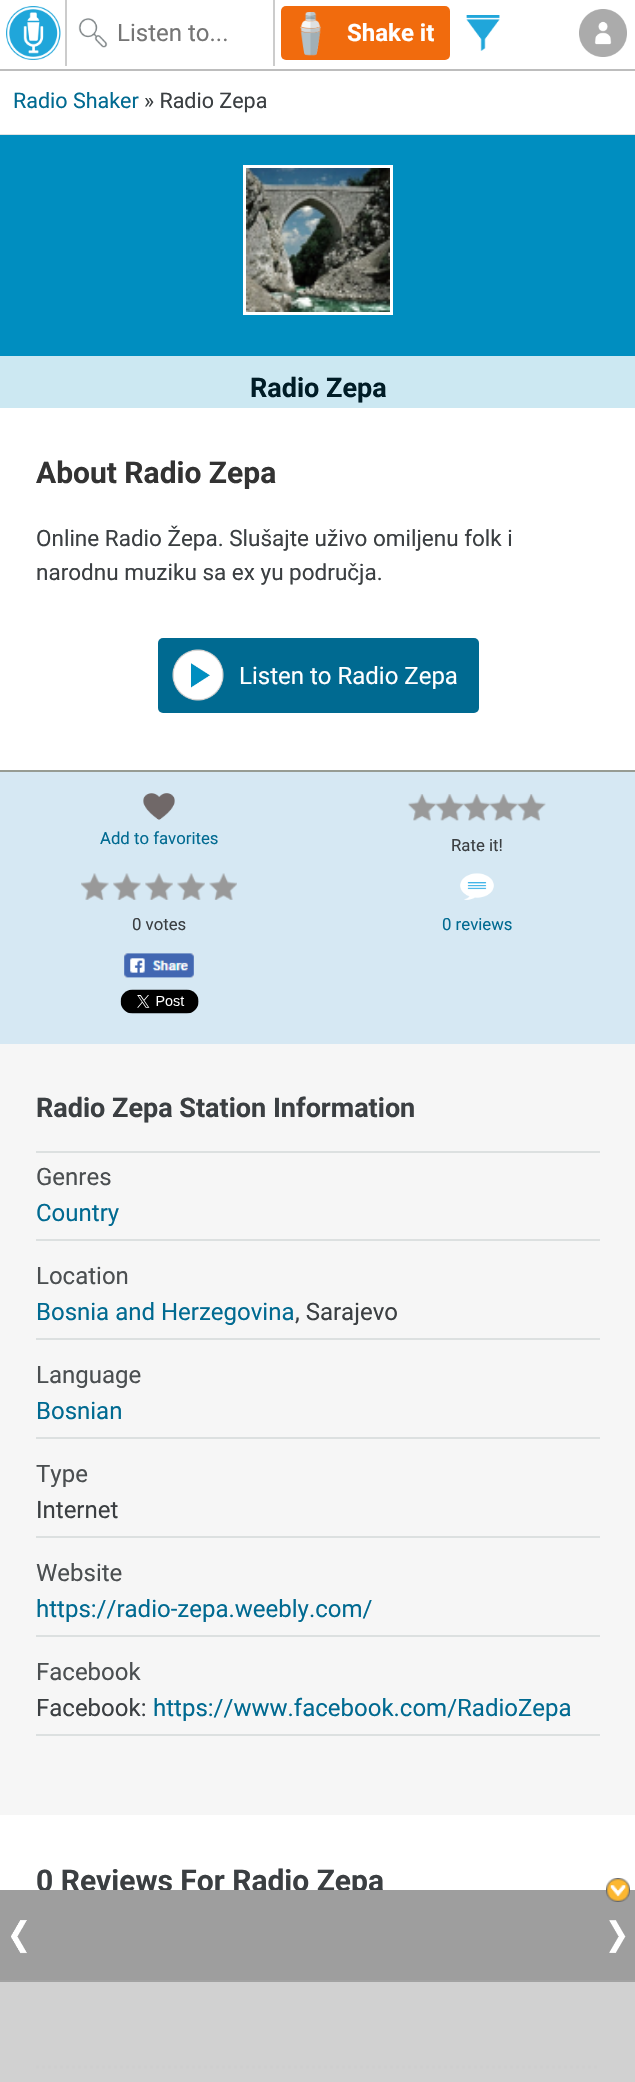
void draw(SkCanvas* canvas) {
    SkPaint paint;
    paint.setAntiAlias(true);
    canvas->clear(0xFFFFFFFF);
    paint.setColor(0xFFBDBDBD);
    canvas->drawRect(SkRect::MakeXYWH(0, 69, 635, 2), paint);
    canvas->drawImageRect(SkImages::DeferredFromEncodedData(SkData::MakeFromFileName("img1.png")), SkRect::MakeXYWH(6, 6, 55, 54), SkSamplingOptions());
    canvas->drawImageRect(SkImages::DeferredFromEncodedData(SkData::MakeFromFileName("img2.png")), SkRect::MakeXYWH(78, 18, 30, 30), SkSamplingOptions());
    paint.setColor(0xFFCCCCCC);
    canvas->drawRect(SkRect::MakeXYWH(273, 0, 2, 66), paint);
    canvas->drawRect(SkRect::MakeXYWH(65, 0, 2, 66), paint);
    SkFont font1(fontMgr->matchFamilyStyle("Roboto", SkFontStyle::Normal()), 24);
    font1.setSubpixel(true);
    paint.setColor(0xFF757575);
    canvas->drawString("Listen to...", 117, 41, font1, paint);
    paint.setColor(0xFFF16B0D);
    canvas->drawRoundRect(SkRect::MakeXYWH(281, 6, 169, 54), 5, 5, paint);
    canvas->drawImageRect(SkImages::DeferredFromEncodedData(SkData::MakeFromFileName("img3.png")), SkRect::MakeXYWH(300, 12, 21, 44), SkSamplingOptions());
    SkFont font2(fontMgr->matchFamilyStyle("Roboto", SkFontStyle::Bold()), 24);
    font2.setSubpixel(true);
    paint.setColor(0xFFFFFFFF);
    canvas->drawString("Shake it", 347, 41, font2, paint);
    canvas->drawImageRect(SkImages::DeferredFromEncodedData(SkData::MakeFromFileName("img4.png")), SkRect::MakeXYWH(466, 15, 34, 36), SkSamplingOptions());
    canvas->drawImageRect(SkImages::DeferredFromEncodedData(SkData::MakeFromFileName("img5.png")), SkRect::MakeXYWH(579, 9, 48, 48), SkSamplingOptions());
    paint.setColor(0xFFE0E3E3);
    canvas->drawRect(SkRect::MakeXYWH(0, 134, 635, 1), paint);
    SkFont font3(fontMgr->matchFamilyStyle("Roboto", SkFontStyle::Normal()), 21.5f);
    font3.setSubpixel(true);
    paint.setColor(0xFF006A91);
    canvas->drawString("Radio Shaker", 13, 108, font3, paint);
    paint.setColor(0xFF3B3F42);
    canvas->drawString("» Radio Zepa", 144, 108, font3, paint);
    paint.setColor(0xFF008EC0);
    canvas->drawRect(SkRect::MakeXYWH(0, 135, 635, 221), paint);
    paint.setStyle(SkPaint::kStroke_Style);
    paint.setStrokeWidth(3);
    paint.setColor(0xFFFFFFFF);
    canvas->drawRect(SkRect::MakeXYWH(244.5f, 166.5f, 147, 147), paint);
    canvas->drawImageRect(SkImages::DeferredFromEncodedData(SkData::MakeFromFileName("img6.png")), SkRect::MakeXYWH(246, 168, 144, 144), SkSamplingOptions());
    paint.setStyle(SkPaint::kFill_Style);
    paint.setColor(0xFFCCE8F2);
    canvas->drawRect(SkRect::MakeXYWH(0, 356, 635, 52), paint);
    SkFont font4(fontMgr->matchFamilyStyle("Roboto", SkFontStyle::Bold()), 27);
    font4.setSubpixel(true);
    paint.setColor(0xFF001C26);
    canvas->drawString("Radio Zepa", 250, 397, font4, paint);
    SkFont font5(fontMgr->matchFamilyStyle("Roboto", SkFontStyle::Bold()), 30);
    font5.setSubpixel(true);
    paint.setColor(0xFF333333);
    canvas->drawString("About Radio Zepa", 36, 483, font5, paint);
    SkFont font6(fontMgr->matchFamilyStyle("Roboto", SkFontStyle::Normal()), 22.5f);
    font6.setSubpixel(true);
    paint.setColor(0xFF3B3F42);
    canvas->drawString("Online Radio Žepa. Slušajte uživo omiljenu folk i", 36, 546, font6, paint);
    canvas->drawString("narodnu muziku sa ex yu područja.", 36, 580, font6, paint);
    paint.setColor(0xFF006A91);
    canvas->drawRoundRect(SkRect::MakeXYWH(158, 638, 321, 75), 5, 5, paint);
    canvas->drawImageRect(SkImages::DeferredFromEncodedData(SkData::MakeFromFileName("img7.png")), SkRect::MakeXYWH(172, 649, 52, 52), SkSamplingOptions());
    paint.setColor(0xFFFFFFFF);
    canvas->drawString("Listen to Radio Zepa", 239, 684, font1, paint);
    paint.setColor(0xFFD6E8F3);
    canvas->drawRect(SkRect::MakeXYWH(0, 772, 635, 272), paint);
    paint.setColor(0xFF979C93);
    canvas->drawRect(SkRect::MakeXYWH(0, 770, 635, 2), paint);
    canvas->drawImageRect(SkImages::DeferredFromEncodedData(SkData::MakeFromFileName("img8.png")), SkRect::MakeXYWH(143, 793, 32, 27), SkSamplingOptions());
    SkFont font7(fontMgr->matchFamilyStyle("Roboto", SkFontStyle::Normal()), 16.75f);
    font7.setSubpixel(true);
    paint.setColor(0xFF006A91);
    canvas->drawString("Add to favorites", 100, 844, font7, paint);
    canvas->drawImageRect(SkImages::DeferredFromEncodedData(SkData::MakeFromFileName("img9.png")), SkRect::MakeXYWH(408, 794, 29, 27), SkSamplingOptions());
    canvas->drawImageRect(SkImages::DeferredFromEncodedData(SkData::MakeFromFileName("img10.png")), SkRect::MakeXYWH(436, 794, 28, 27), SkSamplingOptions());
    canvas->drawImageRect(SkImages::DeferredFromEncodedData(SkData::MakeFromFileName("img11.png")), SkRect::MakeXYWH(463, 794, 28, 27), SkSamplingOptions());
    canvas->drawImageRect(SkImages::DeferredFromEncodedData(SkData::MakeFromFileName("img10.png")), SkRect::MakeXYWH(490, 794, 28, 27), SkSamplingOptions());
    canvas->drawImageRect(SkImages::DeferredFromEncodedData(SkData::MakeFromFileName("img12.png")), SkRect::MakeXYWH(517, 794, 29, 27), SkSamplingOptions());
    paint.setColor(0xFF3B3F42);
    canvas->drawString("Rate it!", 451, 851, font7, paint);
    canvas->drawImageRect(SkImages::DeferredFromEncodedData(SkData::MakeFromFileName("img13.png")), SkRect::MakeXYWH(81, 873, 156, 27), SkSamplingOptions());
    canvas->drawString("0 votes", 132, 930, font7, paint);
    canvas->drawImageRect(SkImages::DeferredFromEncodedData(SkData::MakeFromFileName("img14.png")), SkRect::MakeXYWH(460, 873, 34, 27), SkSamplingOptions());
    paint.setColor(0xFF006A91);
    canvas->drawString("0 reviews", 442, 930, font7, paint);
    canvas->drawImageRect(SkImages::DeferredFromEncodedData(SkData::MakeFromFileName("img15.png")), SkRect::MakeXYWH(124, 953, 70, 25), SkSamplingOptions());
    canvas->drawImageRect(SkImages::DeferredFromEncodedData(SkData::MakeFromFileName("img16.png")), SkRect::MakeXYWH(120, 989, 79, 25), SkSamplingOptions());
    paint.setColor(0xFFF6F6F6);
    canvas->drawRect(SkRect::MakeXYWH(0, 1044, 635, 771), paint);
    paint.setColor(0xFF3B3F42);
    canvas->drawString("Radio Zepa Station Information", 36, 1117, font4, paint);
    paint.setColor(0xFFDCE0E0);
    canvas->drawRect(SkRect::MakeXYWH(36, 1151, 564, 2), paint);
    canvas->drawRect(SkRect::MakeXYWH(36, 1239, 564, 2), paint);
    paint.setColor(0xFF4B4F51);
    canvas->drawString("Genres", 36, 1185, font1, paint);
    paint.setColor(0xFF006A91);
    canvas->drawString("Country", 36, 1221, font1, paint);
    paint.setColor(0xFFDCE0E0);
    canvas->drawRect(SkRect::MakeXYWH(36, 1338, 564, 2), paint);
    paint.setColor(0xFF4B4F51);
    canvas->drawString("Location", 36, 1284, font1, paint);
    paint.setColor(0xFF006A91);
    canvas->drawString("Bosnia and Herzegovina", 36, 1320, font1, paint);
    paint.setColor(0xFF3B3F42);
    canvas->drawString(", Sarajevo", 295, 1320, font1, paint);
    paint.setColor(0xFFDCE0E0);
    canvas->drawRect(SkRect::MakeXYWH(36, 1437, 564, 2), paint);
    paint.setColor(0xFF4B4F51);
    canvas->drawString("Language", 36, 1383, font1, paint);
    paint.setColor(0xFF006A91);
    canvas->drawString("Bosnian", 36, 1419, font1, paint);
    paint.setColor(0xFFDCE0E0);
    canvas->drawRect(SkRect::MakeXYWH(36, 1536, 564, 2), paint);
    paint.setColor(0xFF4B4F51);
    canvas->drawString("Type", 36, 1482, font1, paint);
    paint.setColor(0xFF3B3F42);
    canvas->drawString("Internet", 36, 1518, font1, paint);
    paint.setColor(0xFFDCE0E0);
    canvas->drawRect(SkRect::MakeXYWH(36, 1635, 564, 2), paint);
    paint.setColor(0xFF4B4F51);
    canvas->drawString("Website", 36, 1581, font1, paint);
    paint.setColor(0xFF006A91);
    canvas->drawString("https://radio-zepa.weebly.com/", 36, 1617, font1, paint);
    paint.setColor(0xFFDCE0E0);
    canvas->drawRect(SkRect::MakeXYWH(36, 1734, 564, 2), paint);
    paint.setColor(0xFF4B4F51);
    canvas->drawString("Facebook", 36, 1680, font1, paint);
    paint.setColor(0xFF3B3F42);
    canvas->drawString("Facebook:", 36, 1716, font1, paint);
    paint.setColor(0xFF006A91);
    canvas->drawString("https://www.facebook.com/RadioZepa", 153, 1716, font1, paint);
    paint.setColor(0xFF3B3F42);
    canvas->drawString("0 Reviews For Radio Zepa", 36, 1891, font5, paint);
    paint.setStyle(SkPaint::kStroke_Style);
    paint.setColor(0xFFCBCFC8);
    paint.setPathEffect(SkDashPathEffect::Make({{3, 3}}, 0));
    canvas->drawPath(SkPathBuilder().moveTo(36, 2067).lineTo(600, 2067).detach(), paint);
    paint.setPathEffect(nullptr);
    paint.setStyle(SkPaint::kFill_Style);
    paint.setColor(0xFF9E9E9E);
    canvas->drawRect(SkRect::MakeXYWH(0, 1890, 635, 90), paint);
    canvas->drawImageRect(SkImages::DeferredFromEncodedData(SkData::MakeFromFileName("img17.png")), SkRect::MakeXYWH(606, 1878, 24, 24), SkSamplingOptions());
    canvas->drawImageRect(SkImages::DeferredFromEncodedData(SkData::MakeFromFileName("img18.png")), SkRect::MakeXYWH(11, 1920, 16, 34), SkSamplingOptions());
    canvas->drawImageRect(SkImages::DeferredFromEncodedData(SkData::MakeFromFileName("img19.png")), SkRect::MakeXYWH(609, 1920, 17, 33), SkSamplingOptions());
    paint.setColor(0xF2CFCFCF);
    canvas->drawRect(SkRect::MakeXYWH(0, 1982, 635, 100), paint);
    paint.setColor(0xFFA2A2A2);
    canvas->drawRect(SkRect::MakeXYWH(0, 1980, 635, 2), paint);
}
